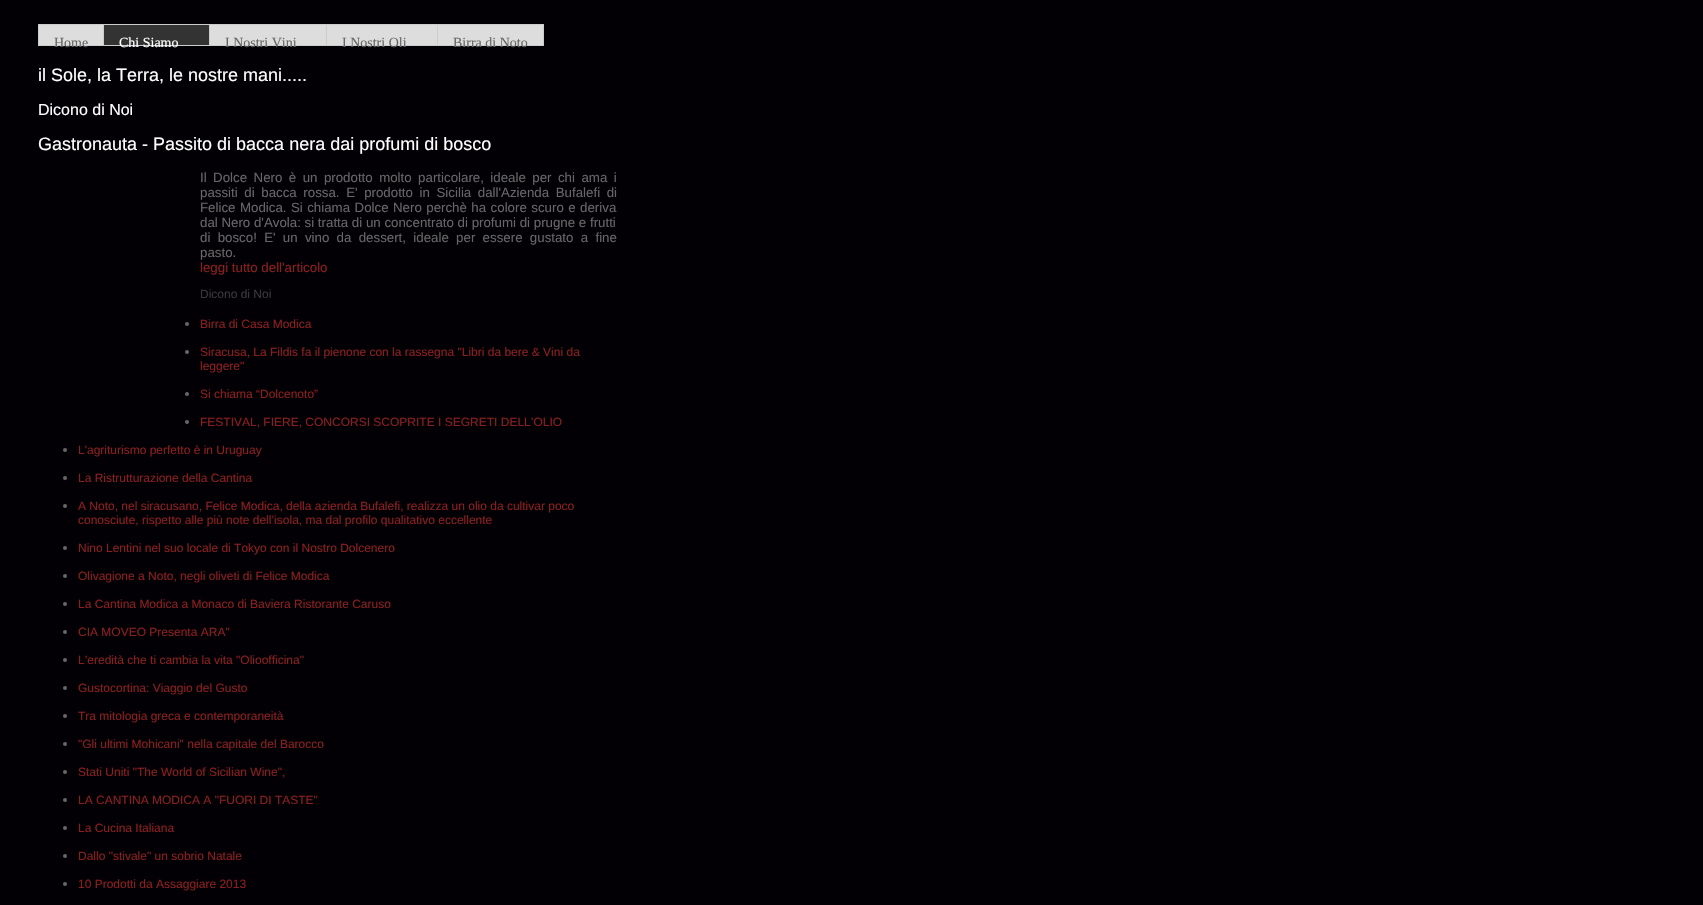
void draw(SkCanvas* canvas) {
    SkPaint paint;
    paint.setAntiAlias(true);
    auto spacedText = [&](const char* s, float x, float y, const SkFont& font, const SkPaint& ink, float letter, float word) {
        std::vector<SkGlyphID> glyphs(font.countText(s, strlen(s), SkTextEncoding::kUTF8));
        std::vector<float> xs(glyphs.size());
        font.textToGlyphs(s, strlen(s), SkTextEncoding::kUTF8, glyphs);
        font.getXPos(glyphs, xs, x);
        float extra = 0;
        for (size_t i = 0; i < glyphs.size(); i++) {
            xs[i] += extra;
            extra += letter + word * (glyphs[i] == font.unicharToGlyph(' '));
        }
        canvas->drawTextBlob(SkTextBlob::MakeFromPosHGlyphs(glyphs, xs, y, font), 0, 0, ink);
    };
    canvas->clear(0xFF020005);
    paint.setColor(0xFFDDDDDD);
    canvas->drawRect(SkRect::MakeXYWH(38.5f, 24.5f, 65, 21), paint);
    paint.setStyle(SkPaint::kStroke_Style);
    paint.setStrokeWidth(1);
    paint.setColor(0xFFCCCCCC);
    canvas->drawRect(SkRect::MakeXYWH(38.5f, 24.5f, 65, 21), paint);
    SkFont font1(fontMgr->matchFamilyStyle("Liberation Serif", SkFontStyle::Normal()), 14);
    font1.setSubpixel(true);
    paint.setStyle(SkPaint::kFill_Style);
    paint.setColor(0xFF666666);
    canvas->drawString("Home", 54, 47, font1, paint);
    paint.setColor(0xFF333333);
    canvas->drawRect(SkRect::MakeXYWH(104, 25, 105, 20), paint);
    paint.setColor(0xFFCCCCCC);
    canvas->drawRect(SkRect::MakeXYWH(104, 24, 440, 1), paint);
    canvas->drawRect(SkRect::MakeXYWH(209, 24, 1, 22), paint);
    canvas->drawRect(SkRect::MakeXYWH(104, 45, 106, 1), paint);
    paint.setColor(0xFFFFFFFF);
    canvas->drawString("Chi Siamo", 119, 47, font1, paint);
    paint.setColor(0xFFDDDDDD);
    canvas->drawRect(SkRect::MakeXYWH(210, 25, 116, 20), paint);
    paint.setColor(0xFFCCCCCC);
    canvas->drawRect(SkRect::MakeXYWH(326, 24, 1, 22), paint);
    canvas->drawRect(SkRect::MakeXYWH(210, 45, 117, 1), paint);
    paint.setColor(0xFF666666);
    canvas->drawString("I Nostri Vini", 225, 47, font1, paint);
    paint.setColor(0xFFDDDDDD);
    canvas->drawRect(SkRect::MakeXYWH(327, 25, 110, 20), paint);
    paint.setColor(0xFFCCCCCC);
    canvas->drawRect(SkRect::MakeXYWH(437, 24, 1, 22), paint);
    canvas->drawRect(SkRect::MakeXYWH(327, 45, 111, 1), paint);
    paint.setColor(0xFF666666);
    canvas->drawString("I Nostri Oli", 342, 47, font1, paint);
    paint.setColor(0xFFDDDDDD);
    canvas->drawRect(SkRect::MakeXYWH(438, 25, 105, 20), paint);
    paint.setColor(0xFFCCCCCC);
    canvas->drawRect(SkRect::MakeXYWH(543, 24, 1, 22), paint);
    canvas->drawRect(SkRect::MakeXYWH(438, 45, 106, 1), paint);
    paint.setColor(0xFF666666);
    canvas->drawString("Birra di Noto", 453, 47, font1, paint);
    SkFont font2(fontMgr->matchFamilyStyle("Liberation Sans", SkFontStyle::Normal()), 18);
    font2.setSubpixel(true);
    paint.setColor(0xFFFFFFFF);
    canvas->drawString("il Sole, la Terra, le nostre mani.....", 38, 81, font2, paint);
    SkFont font3(fontMgr->matchFamilyStyle("Liberation Sans", SkFontStyle::Normal()), 16);
    font3.setSubpixel(true);
    canvas->drawString("Dicono di Noi", 38, 115, font3, paint);
    canvas->drawString("Gastronauta - Passito di bacca nera dai profumi di bosco", 38, 150, font2, paint);
    SkFont font4(fontMgr->matchFamilyStyle("Liberation Sans", SkFontStyle::Normal()), 13.3f);
    font4.setSubpixel(true);
    paint.setColor(0xFF666666);
    spacedText("Il Dolce Nero è un prodotto molto particolare, ideale per chi ama i", 200, 182, font4, paint, 0, 2.75f);
    spacedText("passiti di bacca rossa. E' prodotto in Sicilia dall'Azienda Bufalefi di", 200, 197, font4, paint, 0, 2.9f);
    spacedText("Felice Modica. Si chiama Dolce Nero perchè ha colore scuro e deriva", 200, 212, font4, paint, 0, 0.75f);
    canvas->drawString("dal Nero d'Avola: si tratta di un concentrato di profumi di prugne e frutti", 200, 227, font4, paint);
    spacedText("di bosco! E' un vino da dessert, ideale per essere gustato a fine", 200, 242, font4, paint, 0, 3.6f);
    canvas->drawString("pasto.", 200, 257, font4, paint);
    paint.setColor(0xFF8B1E20);
    canvas->drawString("leggi tutto dell'articolo", 200, 272, font4, paint);
    SkFont font5(fontMgr->matchFamilyStyle("Liberation Sans", SkFontStyle::Normal()), 12);
    font5.setSubpixel(true);
    paint.setColor(0xFF383838);
    canvas->drawString("Dicono di Noi", 200, 298, font5, paint);
    paint.setColor(0xFF666666);
    canvas->drawCircle(187, 324, 2, paint);
    paint.setColor(0xFF8B1E20);
    canvas->drawString("Birra di Casa Modica", 200, 328, font5, paint);
    paint.setColor(0xFF666666);
    canvas->drawCircle(187, 352, 2, paint);
    paint.setColor(0xFF8B1E20);
    canvas->drawString("Siracusa, La Fildis fa il pienone con la rassegna \"Libri da bere & Vini da", 200, 356, font5, paint);
    canvas->drawString("leggere\"", 200, 370, font5, paint);
    paint.setColor(0xFF666666);
    canvas->drawCircle(187, 394, 2, paint);
    paint.setColor(0xFF8B1E20);
    canvas->drawString("Si chiama “Dolcenoto”", 200, 398, font5, paint);
    paint.setColor(0xFF666666);
    canvas->drawCircle(187, 422, 2, paint);
    paint.setColor(0xFF8B1E20);
    canvas->drawString("FESTIVAL, FIERE, CONCORSI SCOPRITE I SEGRETI DELL’OLIO", 200, 426, font5, paint);
    paint.setColor(0xFF666666);
    canvas->drawCircle(65, 450, 2, paint);
    paint.setColor(0xFF8B1E20);
    canvas->drawString("L'agriturismo perfetto è in Uruguay", 78, 454, font5, paint);
    paint.setColor(0xFF666666);
    canvas->drawCircle(65, 478, 2, paint);
    paint.setColor(0xFF8B1E20);
    canvas->drawString("La Ristrutturazione della Cantina", 78, 482, font5, paint);
    paint.setColor(0xFF666666);
    canvas->drawCircle(65, 506, 2, paint);
    paint.setColor(0xFF8B1E20);
    canvas->drawString("A Noto, nel siracusano, Felice Modica, della azienda Bufalefi, realizza un olio da cultivar poco", 78, 510, font5, paint);
    canvas->drawString("conosciute, rispetto alle più note dell’isola, ma dal profilo qualitativo eccellente", 78, 524, font5, paint);
    paint.setColor(0xFF666666);
    canvas->drawCircle(65, 548, 2, paint);
    paint.setColor(0xFF8B1E20);
    canvas->drawString("Nino Lentini nel suo locale di Tokyo con il Nostro Dolcenero", 78, 552, font5, paint);
    paint.setColor(0xFF666666);
    canvas->drawCircle(65, 576, 2, paint);
    paint.setColor(0xFF8B1E20);
    canvas->drawString("Olivagione a Noto, negli oliveti di Felice Modica", 78, 580, font5, paint);
    paint.setColor(0xFF666666);
    canvas->drawCircle(65, 604, 2, paint);
    paint.setColor(0xFF8B1E20);
    canvas->drawString("La Cantina Modica a Monaco di Baviera Ristorante Caruso", 78, 608, font5, paint);
    paint.setColor(0xFF666666);
    canvas->drawCircle(65, 632, 2, paint);
    paint.setColor(0xFF8B1E20);
    canvas->drawString("CIA MOVEO Presenta ARA\"", 78, 636, font5, paint);
    paint.setColor(0xFF666666);
    canvas->drawCircle(65, 660, 2, paint);
    paint.setColor(0xFF8B1E20);
    canvas->drawString("L’eredità che ti cambia la vita \"Olioofficina\"", 78, 664, font5, paint);
    paint.setColor(0xFF666666);
    canvas->drawCircle(65, 688, 2, paint);
    paint.setColor(0xFF8B1E20);
    canvas->drawString("Gustocortina: Viaggio del Gusto", 78, 692, font5, paint);
    paint.setColor(0xFF666666);
    canvas->drawCircle(65, 716, 2, paint);
    paint.setColor(0xFF8B1E20);
    canvas->drawString("Tra mitologia greca e contemporaneità", 78, 720, font5, paint);
    paint.setColor(0xFF666666);
    canvas->drawCircle(65, 744, 2, paint);
    paint.setColor(0xFF8B1E20);
    canvas->drawString("\"Gli ultimi Mohicani\" nella capitale del Barocco", 78, 748, font5, paint);
    paint.setColor(0xFF666666);
    canvas->drawCircle(65, 772, 2, paint);
    paint.setColor(0xFF8B1E20);
    canvas->drawString("Stati Uniti \"The World of Sicilian Wine\",", 78, 776, font5, paint);
    paint.setColor(0xFF666666);
    canvas->drawCircle(65, 800, 2, paint);
    paint.setColor(0xFF8B1E20);
    canvas->drawString("LA CANTINA MODICA A \"FUORI DI TASTE\"", 78, 804, font5, paint);
    paint.setColor(0xFF666666);
    canvas->drawCircle(65, 828, 2, paint);
    paint.setColor(0xFF8B1E20);
    canvas->drawString("La Cucina Italiana", 78, 832, font5, paint);
    paint.setColor(0xFF666666);
    canvas->drawCircle(65, 856, 2, paint);
    paint.setColor(0xFF8B1E20);
    canvas->drawString("Dallo \"stivale\" un sobrio Natale", 78, 860, font5, paint);
    paint.setColor(0xFF666666);
    canvas->drawCircle(65, 884, 2, paint);
    paint.setColor(0xFF8B1E20);
    canvas->drawString("10 Prodotti da Assaggiare 2013", 78, 888, font5, paint);
}
